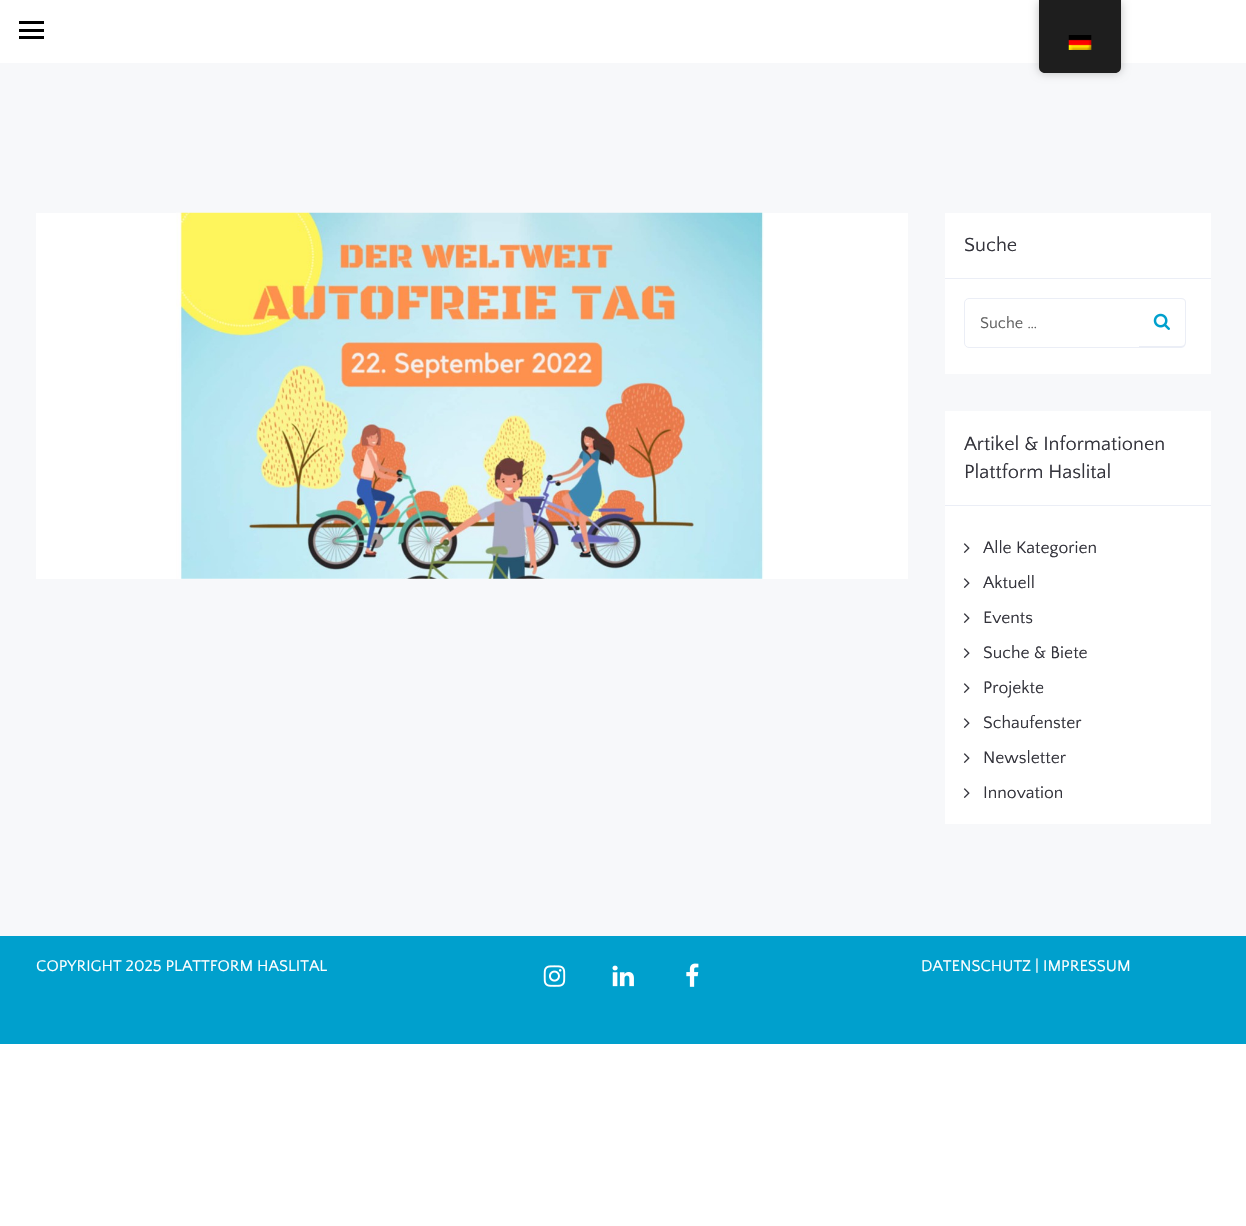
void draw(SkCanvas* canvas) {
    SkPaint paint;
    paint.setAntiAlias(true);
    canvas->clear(0xFFFFFFFF);
    paint.setColor(0xFFF7F8FA);
    canvas->drawRect(SkRect::MakeXYWH(0, 63, 1246, 873), paint);
    paint.setColor(0x40000000);
    paint.setMaskFilter(SkMaskFilter::MakeBlur(kNormal_SkBlurStyle, 5));
    canvas->drawRoundRect(SkRect::MakeXYWH(1039, 0, 82, 73), 6, 6, paint);
    paint.setMaskFilter(nullptr);
    paint.setColor(0xFF1E1E1E);
    canvas->drawPath(SkPathBuilder().moveTo(1039, 0).lineTo(1121, 0).lineTo(1121, 67).cubicTo(1121, 70.5f, 1118.5f, 73, 1115, 73).lineTo(1045, 73).cubicTo(1041.5f, 73, 1039, 70.5f, 1039, 67).close().detach(), paint);
    canvas->drawImageRect(SkImages::DeferredFromEncodedData(SkData::MakeFromFileName("img1.png")), SkRect::MakeXYWH(1068, 35, 24, 15), SkSamplingOptions());
    paint.setColor(0xFF000000);
    canvas->drawRect(SkRect::MakeXYWH(19, 29, 25, 3), paint);
    canvas->drawRect(SkRect::MakeXYWH(19, 21, 25, 3), paint);
    canvas->drawRect(SkRect::MakeXYWH(19, 36, 25, 3), paint);
    paint.setColor(0xFFFFFFFF);
    canvas->drawRect(SkRect::MakeXYWH(36, 213, 872, 366), paint);
    canvas->drawImageRect(SkImages::DeferredFromEncodedData(SkData::MakeFromFileName("img2.png")), SkRect::MakeXYWH(176, 212, 588, 367), SkSamplingOptions());
    canvas->drawRect(SkRect::MakeXYWH(945, 213, 266, 161), paint);
    paint.setColor(0xFFEBEEF6);
    canvas->drawRect(SkRect::MakeXYWH(945, 278, 266, 1), paint);
    SkFont font1(fontMgr->matchFamilyStyle("Quattrocento Sans", SkFontStyle::Normal()), 20);
    font1.setSubpixel(true);
    paint.setColor(0xFF34343C);
    canvas->drawString("Suche", 964, 251, font1, paint);
    paint.setStyle(SkPaint::kStroke_Style);
    paint.setStrokeWidth(1);
    paint.setColor(0xFFEBEEF6);
    canvas->drawPath(SkPathBuilder().moveTo(969, 298.5f).lineTo(1139.5f, 298.5f).lineTo(1139.5f, 347.5f).lineTo(969, 347.5f).cubicTo(966.5f, 347.5f, 964.5f, 345.5f, 964.5f, 343).lineTo(964.5f, 303).cubicTo(964.5f, 300.5f, 966.5f, 298.5f, 969, 298.5f).close().detach(), paint);
    SkFont font2(fontMgr->matchFamilyStyle("Quattrocento Sans", SkFontStyle::Normal()), 16.25f);
    font2.setSubpixel(true);
    paint.setStyle(SkPaint::kFill_Style);
    paint.setColor(0xFF606060);
    canvas->drawString("Suche …", 980, 328, font2, paint);
    paint.setColor(0xFFFFFFFF);
    canvas->drawPath(SkPathBuilder().moveTo(1139, 298).lineTo(1181, 298).cubicTo(1184, 298, 1186, 300, 1186, 303).lineTo(1186, 343).cubicTo(1186, 346, 1184, 348, 1181, 348).lineTo(1139, 348).close().detach(), paint);
    paint.setColor(0xFFEBEEF6);
    canvas->drawPath(SkPathBuilder(SkPathFillType::kEvenOdd).moveTo(1139, 298).lineTo(1181, 298).cubicTo(1184, 298, 1186, 300, 1186, 302).lineTo(1186, 342).cubicTo(1186, 345, 1184, 348, 1181, 348).lineTo(1139, 348).close().moveTo(1139, 299).lineTo(1181, 299).cubicTo(1183, 299, 1185, 300, 1185, 302).lineTo(1185, 342).cubicTo(1185, 345, 1183, 346, 1181, 346).lineTo(1139, 346).close().detach(), paint);
    canvas->drawImageRect(SkImages::DeferredFromEncodedData(SkData::MakeFromFileName("img3.png")), SkRect::MakeXYWH(1153, 313, 17, 17), SkSamplingOptions());
    paint.setColor(0xFFFFFFFF);
    canvas->drawRect(SkRect::MakeXYWH(945, 411, 266, 413), paint);
    paint.setColor(0xFFEBEEF6);
    canvas->drawRect(SkRect::MakeXYWH(945, 505, 266, 1), paint);
    paint.setColor(0xFF34343C);
    canvas->drawString("Artikel & Informationen", 964, 450, font1, paint);
    canvas->drawString("Plattform Haslital", 964, 478, font1, paint);
    canvas->drawImageRect(SkImages::DeferredFromEncodedData(SkData::MakeFromFileName("img4.png")), SkRect::MakeXYWH(963, 543, 7, 10), SkSamplingOptions());
    SkFont font3(fontMgr->matchFamilyStyle("Quattrocento Sans", SkFontStyle::Normal()), 17.5f);
    font3.setSubpixel(true);
    canvas->drawString("Alle Kategorien", 983, 553, font3, paint);
    canvas->drawImageRect(SkImages::DeferredFromEncodedData(SkData::MakeFromFileName("img4.png")), SkRect::MakeXYWH(963, 578, 7, 10), SkSamplingOptions());
    canvas->drawString("Aktuell", 983, 588, font3, paint);
    canvas->drawImageRect(SkImages::DeferredFromEncodedData(SkData::MakeFromFileName("img4.png")), SkRect::MakeXYWH(963, 613, 7, 10), SkSamplingOptions());
    canvas->drawString("Events", 983, 623, font3, paint);
    canvas->drawImageRect(SkImages::DeferredFromEncodedData(SkData::MakeFromFileName("img4.png")), SkRect::MakeXYWH(963, 648, 7, 10), SkSamplingOptions());
    canvas->drawString("Suche & Biete", 983, 658, font3, paint);
    canvas->drawImageRect(SkImages::DeferredFromEncodedData(SkData::MakeFromFileName("img4.png")), SkRect::MakeXYWH(963, 683, 7, 10), SkSamplingOptions());
    canvas->drawString("Projekte", 983, 693, font3, paint);
    canvas->drawImageRect(SkImages::DeferredFromEncodedData(SkData::MakeFromFileName("img4.png")), SkRect::MakeXYWH(963, 718, 7, 10), SkSamplingOptions());
    canvas->drawString("Schaufenster", 983, 728, font3, paint);
    canvas->drawImageRect(SkImages::DeferredFromEncodedData(SkData::MakeFromFileName("img4.png")), SkRect::MakeXYWH(963, 753, 7, 10), SkSamplingOptions());
    canvas->drawString("Newsletter", 983, 763, font3, paint);
    canvas->drawImageRect(SkImages::DeferredFromEncodedData(SkData::MakeFromFileName("img4.png")), SkRect::MakeXYWH(963, 788, 7, 10), SkSamplingOptions());
    canvas->drawString("Innovation", 983, 798, font3, paint);
    paint.setColor(0xFF00A0CD);
    canvas->drawRect(SkRect::MakeXYWH(0, 936, 1246, 108), paint);
    paint.setColor(0xFFFFFFFF);
    canvas->drawString("COPYRIGHT 2025 PLATTFORM HASLITAL", 36, 971, font2, paint);
    canvas->drawImageRect(SkImages::DeferredFromEncodedData(SkData::MakeFromFileName("img5.png")), SkRect::MakeXYWH(543, 965, 23, 22), SkSamplingOptions());
    canvas->drawImageRect(SkImages::DeferredFromEncodedData(SkData::MakeFromFileName("img6.png")), SkRect::MakeXYWH(612, 965, 22, 22), SkSamplingOptions());
    canvas->drawImageRect(SkImages::DeferredFromEncodedData(SkData::MakeFromFileName("img7.png")), SkRect::MakeXYWH(686, 963, 13, 24), SkSamplingOptions());
    canvas->drawString("DATENSCHUTZ | IMPRESSUM", 921, 971, font2, paint);
}
